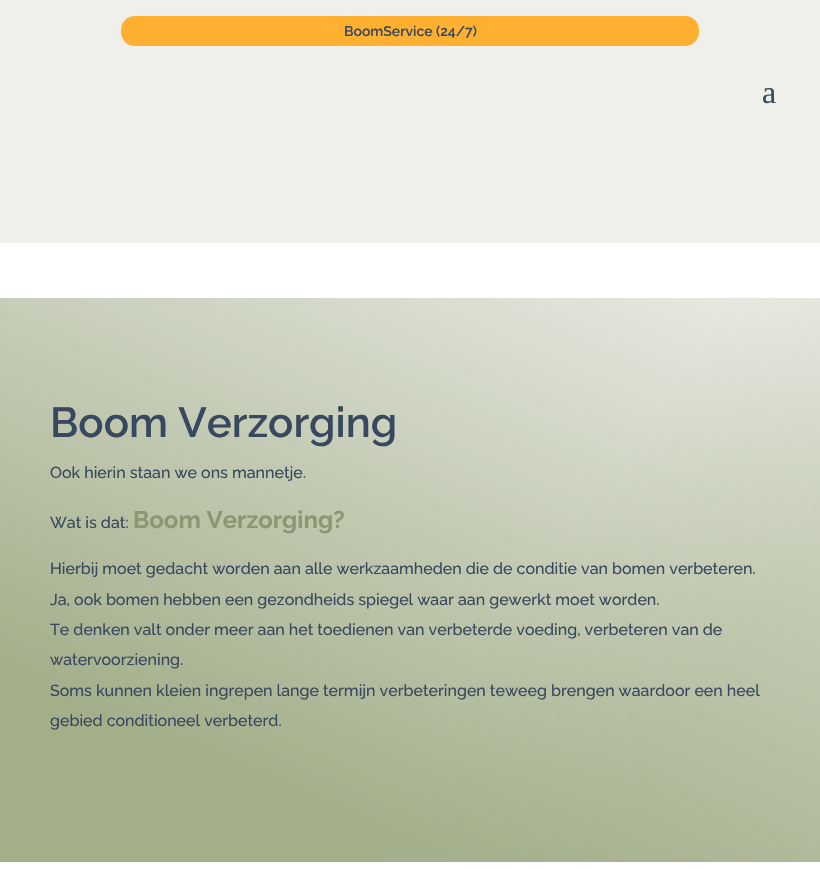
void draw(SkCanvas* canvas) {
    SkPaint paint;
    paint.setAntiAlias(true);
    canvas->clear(0xFFFFFFFF);
    paint.setColor(0xFFEFF0EB);
    canvas->drawRect(SkRect::MakeXYWH(0, 0, 820, 243), paint);
    paint.setColor(0xFFFFB031);
    canvas->drawRoundRect(SkRect::MakeXYWH(121, 16, 578, 30), 14, 14, paint);
    SkFont font1(fontMgr->matchFamilyStyle("Raleway", SkFontStyle(600, SkFontStyle::kNormal_Width, SkFontStyle::kUpright_Slant)), 14);
    font1.setSubpixel(true);
    paint.setColor(0xFF38485E);
    canvas->drawString("BoomService (24/7)", 344, 36, font1, paint);
    SkFont font2(fontMgr->matchFamilyStyle("Liberation Serif", SkFontStyle::Normal()), 32);
    font2.setSubpixel(true);
    canvas->drawString("a", 762, 103, font2, paint);
    {
        const SkColor colors[] = {0xFFF1F2EE, 0xFFE1E4D9};
        const float stops[] = {0.6f, 0.81f};
        const SkPoint ends[] = {{1.9f, 295}, {818, 867}};
        paint.setShader(SkGradientShader::MakeLinear(ends, colors, stops, 2, SkTileMode::kClamp));
        paint.setAlpha(255);
    }
    canvas->drawRect(SkRect::MakeXYWH(0, 298, 820, 564), paint);
    {
        const SkColor colors[] = {0xF09EAA84, 0x149EAA84};
        const float stops[] = {0.21f, 1};
        const SkPoint ends[] = {{237, 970}, {583, 192}};
        paint.setShader(SkGradientShader::MakeLinear(ends, colors, stops, 2, SkTileMode::kClamp));
        paint.setAlpha(255);
    }
    canvas->drawRect(SkRect::MakeXYWH(0, 298, 820, 564), paint);
    SkFont font3(fontMgr->matchFamilyStyle("Raleway", SkFontStyle(600, SkFontStyle::kNormal_Width, SkFontStyle::kUpright_Slant)), 42);
    font3.setSubpixel(true);
    paint.setShader(nullptr);
    paint.setColor(0xFF38485E);
    canvas->drawString("Boom Verzorging", 50, 437, font3, paint);
    SkFont font4(fontMgr->matchFamilyStyle("Raleway", SkFontStyle(500, SkFontStyle::kNormal_Width, SkFontStyle::kUpright_Slant)), 16);
    font4.setSubpixel(true);
    canvas->drawString("Ook hierin staan we ons mannetje.", 50, 478, font4, paint);
    canvas->drawString("Wat is dat:", 50, 528, font4, paint);
    SkFont font5(fontMgr->matchFamilyStyle("Raleway", SkFontStyle::Bold()), 24);
    font5.setSubpixel(true);
    paint.setColor(0xFF8B9771);
    canvas->drawString("Boom Verzorging?", 133, 528, font5, paint);
    paint.setColor(0xFF38485E);
    canvas->drawString("Hierbij moet gedacht worden aan alle werkzaamheden die de conditie van bomen verbeteren.", 50, 574, font4, paint);
    canvas->drawString("Ja, ook bomen hebben een gezondheids spiegel waar aan gewerkt moet worden.", 50, 605, font4, paint);
    canvas->drawString("Te denken valt onder meer aan het toedienen van verbeterde voeding, verbeteren van de", 50, 635, font4, paint);
    canvas->drawString("watervoorziening.", 50, 665, font4, paint);
    canvas->drawString("Soms kunnen kleien ingrepen lange termijn verbeteringen teweeg brengen waardoor een heel", 50, 696, font4, paint);
    canvas->drawString("gebied conditioneel verbeterd.", 50, 726, font4, paint);
}
